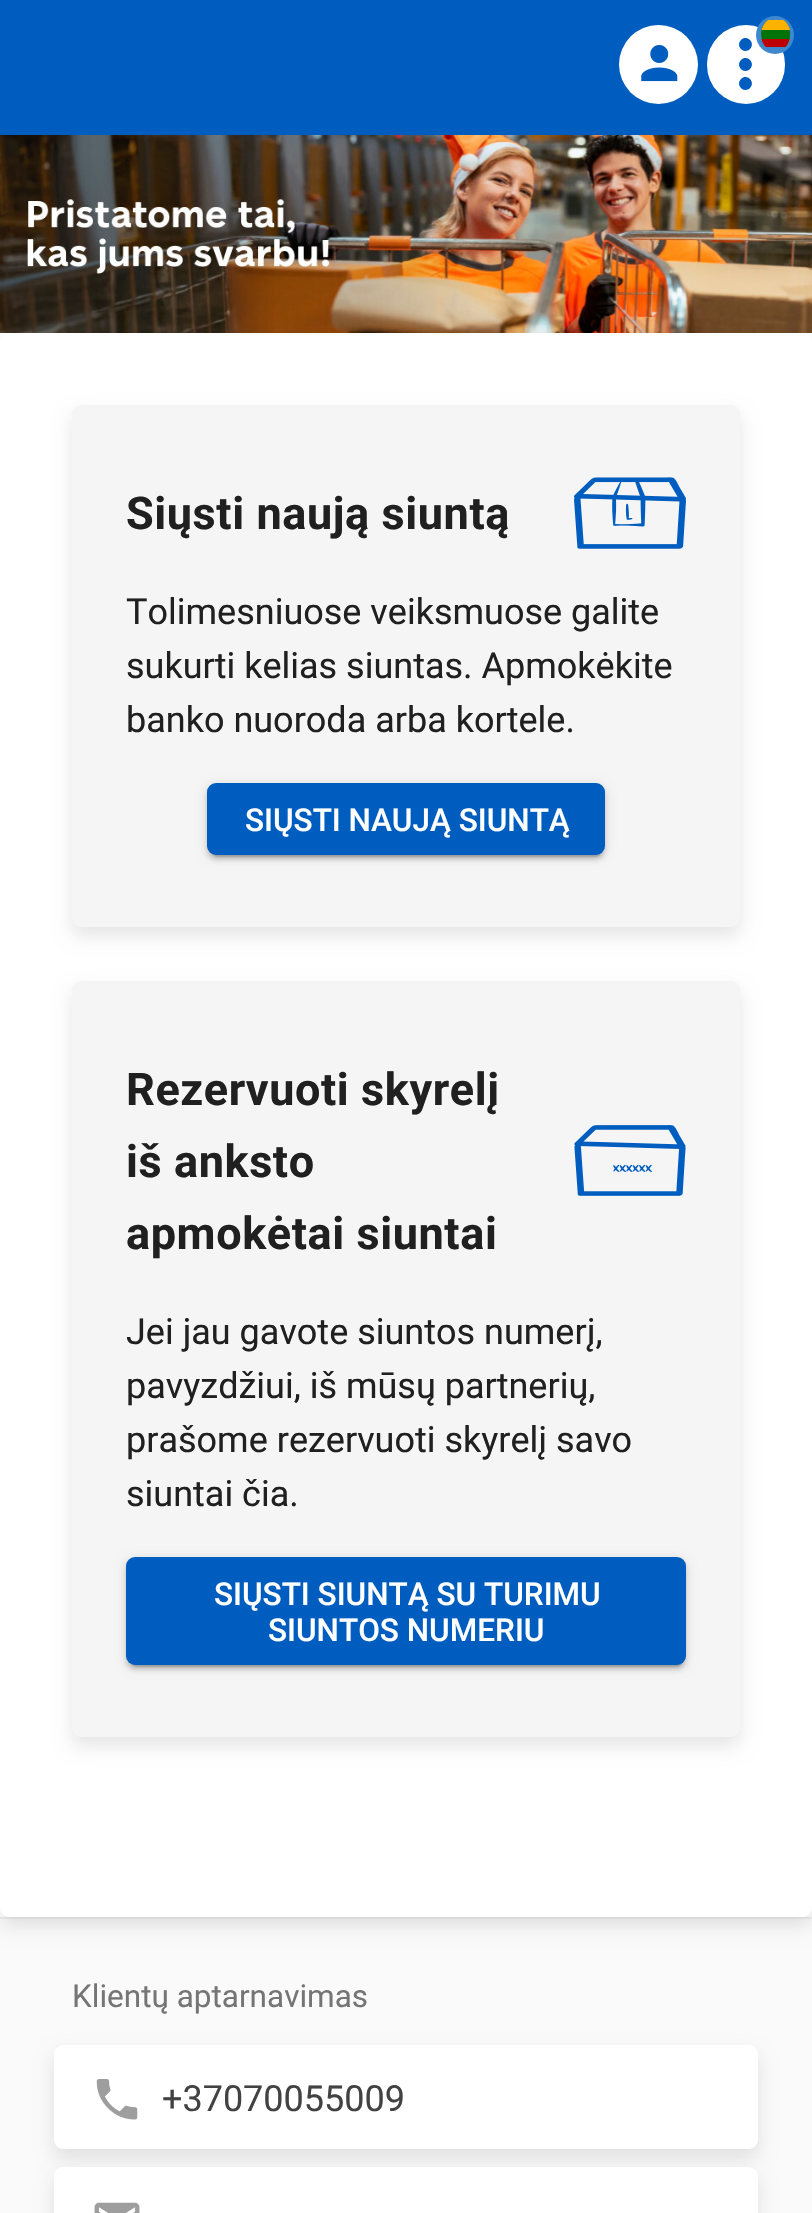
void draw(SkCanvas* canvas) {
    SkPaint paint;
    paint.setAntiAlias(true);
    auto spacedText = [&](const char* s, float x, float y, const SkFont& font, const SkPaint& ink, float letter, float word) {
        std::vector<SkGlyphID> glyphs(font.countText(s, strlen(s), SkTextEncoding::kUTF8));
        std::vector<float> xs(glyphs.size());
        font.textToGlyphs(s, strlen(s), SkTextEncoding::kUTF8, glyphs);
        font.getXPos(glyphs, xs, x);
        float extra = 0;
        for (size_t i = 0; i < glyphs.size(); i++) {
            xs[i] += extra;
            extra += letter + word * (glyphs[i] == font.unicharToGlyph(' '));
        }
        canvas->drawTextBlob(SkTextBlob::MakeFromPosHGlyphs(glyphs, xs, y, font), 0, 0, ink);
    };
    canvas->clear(0xFFFFFFFF);
    paint.setColor(0xFF005DC0);
    canvas->drawRect(SkRect::MakeXYWH(0, 0, 812, 135), paint);
    paint.setColor(0xFFFFFFFF);
    canvas->drawCircle(658.5f, 64.5f, 39.5f, paint);
    canvas->drawImageRect(SkImages::DeferredFromEncodedData(SkData::MakeFromFileName("img1.png")), SkRect::MakeXYWH(641, 45, 37, 37), SkSamplingOptions());
    canvas->drawRoundRect(SkRect::MakeXYWH(707, 25, 78, 79), 39, 39, paint);
    paint.setColor(0xFF005DC0);
    canvas->drawPath(SkPathBuilder().moveTo(741, 79).cubicTo(747, 73, 756, 82, 750, 88).cubicTo(744, 94, 735, 85, 741, 79).close().moveTo(741, 60).cubicTo(747, 54, 756, 63, 750, 69).cubicTo(744, 75, 735, 66, 741, 60).close().moveTo(750, 49).cubicTo(744, 55, 735, 46, 741, 40).cubicTo(747, 34, 756, 43, 750, 49).close().detach(), paint);
    paint.setColor(0xFF3F88CE);
    canvas->drawCircle(775, 35, 19, paint);
    canvas->save();
    canvas->clipRect(SkRect::MakeXYWH(761, 18, 29, 29));
    paint.setColor(0xFF007308);
    canvas->drawPath(SkPathBuilder().moveTo(768.5f, 49).cubicTo(759, 42.5f, 758.5f, 26.5f, 768, 20).lineTo(783.5f, 20).cubicTo(792.5f, 26.5f, 792.5f, 42.5f, 783, 49).close().detach(), paint);
    paint.setColor(0xFFBF0000);
    canvas->drawPath(SkPathBuilder().moveTo(768.5f, 49).cubicTo(765, 47, 762.5f, 43.5f, 761.5f, 39).lineTo(789.5f, 39).cubicTo(788.5f, 43.5f, 786, 47, 783, 49).close().detach(), paint);
    canvas->restore();
    paint.setColor(0xFFFFB300);
    canvas->drawPath(SkPathBuilder().moveTo(761.5f, 30).cubicTo(762.5f, 26, 765, 22, 768, 20).lineTo(783.5f, 20).cubicTo(786.5f, 22, 789, 26, 790, 30).close().detach(), paint);
    canvas->drawImageRect(SkImages::DeferredFromEncodedData(SkData::MakeFromFileName("img2.png")), SkRect::MakeXYWH(0, 135, 812, 198), SkSamplingOptions());
    paint.setColor(0xFFFAFAFA);
    canvas->drawRect(SkRect::MakeXYWH(0, 1919, 812, 294), paint);
    paint.setColor(0xFFEEEEEE);
    canvas->drawRect(SkRect::MakeXYWH(0, 1917, 812, 2), paint);
    paint.setColor(0x1A000000);
    paint.setMaskFilter(SkMaskFilter::MakeBlur(kNormal_SkBlurStyle, 9));
    canvas->drawRoundRect(SkRect::MakeXYWH(0, 342, 812, 1584), 9, 9, paint);
    paint.setMaskFilter(nullptr);
    paint.setColor(0xFFFFFFFF);
    canvas->drawRoundRect(SkRect::MakeXYWH(0, 333, 812, 1584), 9, 9, paint);
    paint.setColor(0x1A000000);
    paint.setMaskFilter(SkMaskFilter::MakeBlur(kNormal_SkBlurStyle, 9));
    canvas->drawRoundRect(SkRect::MakeXYWH(72, 414, 668, 522), 9, 9, paint);
    paint.setMaskFilter(nullptr);
    paint.setColor(0xFFF5F5F5);
    canvas->drawRoundRect(SkRect::MakeXYWH(72, 405, 668, 522), 9, 9, paint);
    SkFont font1(fontMgr->matchFamilyStyle("Roboto", SkFontStyle::Bold()), 45);
    font1.setSubpixel(true);
    paint.setColor(0xFF202020);
    spacedText("Siųsti naują siuntą", 126, 529, font1, paint, 0.6f, 0);
    canvas->drawImageRect(SkImages::DeferredFromEncodedData(SkData::MakeFromFileName("img3.png")), SkRect::MakeXYWH(574, 477, 112, 72), SkSamplingOptions());
    SkFont font2(fontMgr->matchFamilyStyle("Roboto", SkFontStyle::Normal()), 36);
    font2.setSubpixel(true);
    canvas->drawString("Tolimesniuose veiksmuose galite", 126, 624, font2, paint);
    canvas->drawString("sukurti kelias siuntas. Apmokėkite", 126, 678, font2, paint);
    canvas->drawString("banko nuoroda arba kortele.", 126, 732, font2, paint);
    paint.setColor(0x1F000000);
    paint.setMaskFilter(SkMaskFilter::MakeBlur(kNormal_SkBlurStyle, 5.5f));
    canvas->drawRoundRect(SkRect::MakeXYWH(207, 785, 398, 72), 9, 9, paint);
    paint.setMaskFilter(nullptr);
    paint.setColor(0x24000000);
    paint.setMaskFilter(SkMaskFilter::MakeBlur(kNormal_SkBlurStyle, 2));
    canvas->drawRoundRect(SkRect::MakeXYWH(207, 788, 398, 72), 9, 9, paint);
    paint.setMaskFilter(nullptr);
    paint.setColor(0x33000000);
    paint.setMaskFilter(SkMaskFilter::MakeBlur(kNormal_SkBlurStyle, 1));
    canvas->drawRoundRect(SkRect::MakeXYWH(212, 794, 389, 63), 5, 5, paint);
    paint.setMaskFilter(nullptr);
    paint.setColor(0xFF005DC0);
    canvas->drawRoundRect(SkRect::MakeXYWH(207, 783, 398, 72), 9, 9, paint);
    SkFont font3(fontMgr->matchFamilyStyle("Roboto", SkFontStyle(500, SkFontStyle::kNormal_Width, SkFontStyle::kUpright_Slant)), 31.5f);
    font3.setSubpixel(true);
    paint.setColor(0xFFFFFFFF);
    canvas->drawString("SIŲSTI NAUJĄ SIUNTĄ", 245, 831, font3, paint);
    paint.setColor(0x1A000000);
    paint.setMaskFilter(SkMaskFilter::MakeBlur(kNormal_SkBlurStyle, 9));
    canvas->drawRoundRect(SkRect::MakeXYWH(72, 990, 668, 756), 9, 9, paint);
    paint.setMaskFilter(nullptr);
    paint.setColor(0xFFF5F5F5);
    canvas->drawRoundRect(SkRect::MakeXYWH(72, 981, 668, 756), 9, 9, paint);
    paint.setColor(0xFF202020);
    spacedText("Rezervuoti skyrelį", 126, 1105, font1, paint, 0.6f, 0);
    spacedText("iš anksto", 126, 1177, font1, paint, 0.6f, 0);
    spacedText("apmokėtai siuntai", 126, 1249, font1, paint, 0.6f, 0);
    canvas->drawImageRect(SkImages::DeferredFromEncodedData(SkData::MakeFromFileName("img4.png")), SkRect::MakeXYWH(574, 1125, 112, 71), SkSamplingOptions());
    canvas->drawString("Jei jau gavote siuntos numerį,", 126, 1344, font2, paint);
    canvas->drawString("pavyzdžiui, iš mūsų partnerių,", 126, 1398, font2, paint);
    canvas->drawString("prašome rezervuoti skyrelį savo", 126, 1452, font2, paint);
    canvas->drawString("siuntai čia.", 126, 1506, font2, paint);
    paint.setColor(0x1F000000);
    paint.setMaskFilter(SkMaskFilter::MakeBlur(kNormal_SkBlurStyle, 5.5f));
    canvas->drawRoundRect(SkRect::MakeXYWH(126, 1559, 560, 108), 9, 9, paint);
    paint.setMaskFilter(nullptr);
    paint.setColor(0x24000000);
    paint.setMaskFilter(SkMaskFilter::MakeBlur(kNormal_SkBlurStyle, 2));
    canvas->drawRoundRect(SkRect::MakeXYWH(126, 1562, 560, 108), 9, 9, paint);
    paint.setMaskFilter(nullptr);
    paint.setColor(0x33000000);
    paint.setMaskFilter(SkMaskFilter::MakeBlur(kNormal_SkBlurStyle, 1));
    canvas->drawRoundRect(SkRect::MakeXYWH(131, 1568, 551, 99), 5, 5, paint);
    paint.setMaskFilter(nullptr);
    paint.setColor(0xFF005DC0);
    canvas->drawRoundRect(SkRect::MakeXYWH(126, 1557, 560, 108), 9, 9, paint);
    paint.setColor(0xFFFFFFFF);
    canvas->drawString("SIŲSTI SIUNTĄ SU TURIMU", 214, 1605, font3, paint);
    canvas->drawString("SIUNTOS NUMERIU", 268, 1641, font3, paint);
    SkFont font4(fontMgr->matchFamilyStyle("Roboto", SkFontStyle::Normal()), 31.5f);
    font4.setSubpixel(true);
    paint.setColor(0xFF757575);
    canvas->drawString("Klientų aptarnavimas", 72, 2007, font4, paint);
    paint.setColor(0x1A000000);
    paint.setMaskFilter(SkMaskFilter::MakeBlur(kNormal_SkBlurStyle, 9));
    canvas->drawRoundRect(SkRect::MakeXYWH(54, 2054, 704, 104), 9, 9, paint);
    paint.setMaskFilter(nullptr);
    paint.setColor(0xFFFFFFFF);
    canvas->drawRoundRect(SkRect::MakeXYWH(54, 2045, 704, 104), 9, 9, paint);
    canvas->drawImageRect(SkImages::DeferredFromEncodedData(SkData::MakeFromFileName("img5.png")), SkRect::MakeXYWH(96, 2079, 42, 41), SkSamplingOptions());
    paint.setColor(0xFF424242);
    canvas->drawString("+37070055009", 162, 2111, font2, paint);
    paint.setColor(0x1A000000);
    paint.setMaskFilter(SkMaskFilter::MakeBlur(kNormal_SkBlurStyle, 9));
    canvas->drawRoundRect(SkRect::MakeXYWH(54, 2176, 704, 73), 9, 9, paint);
    paint.setMaskFilter(nullptr);
    paint.setColor(0xFFFFFFFF);
    canvas->drawRoundRect(SkRect::MakeXYWH(54, 2167, 704, 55), 9, 9, paint);
    canvas->drawImageRect(SkImages::DeferredFromEncodedData(SkData::MakeFromFileName("img6.png")), SkRect::MakeXYWH(94, 2202, 46, 11), SkSamplingOptions());
}
